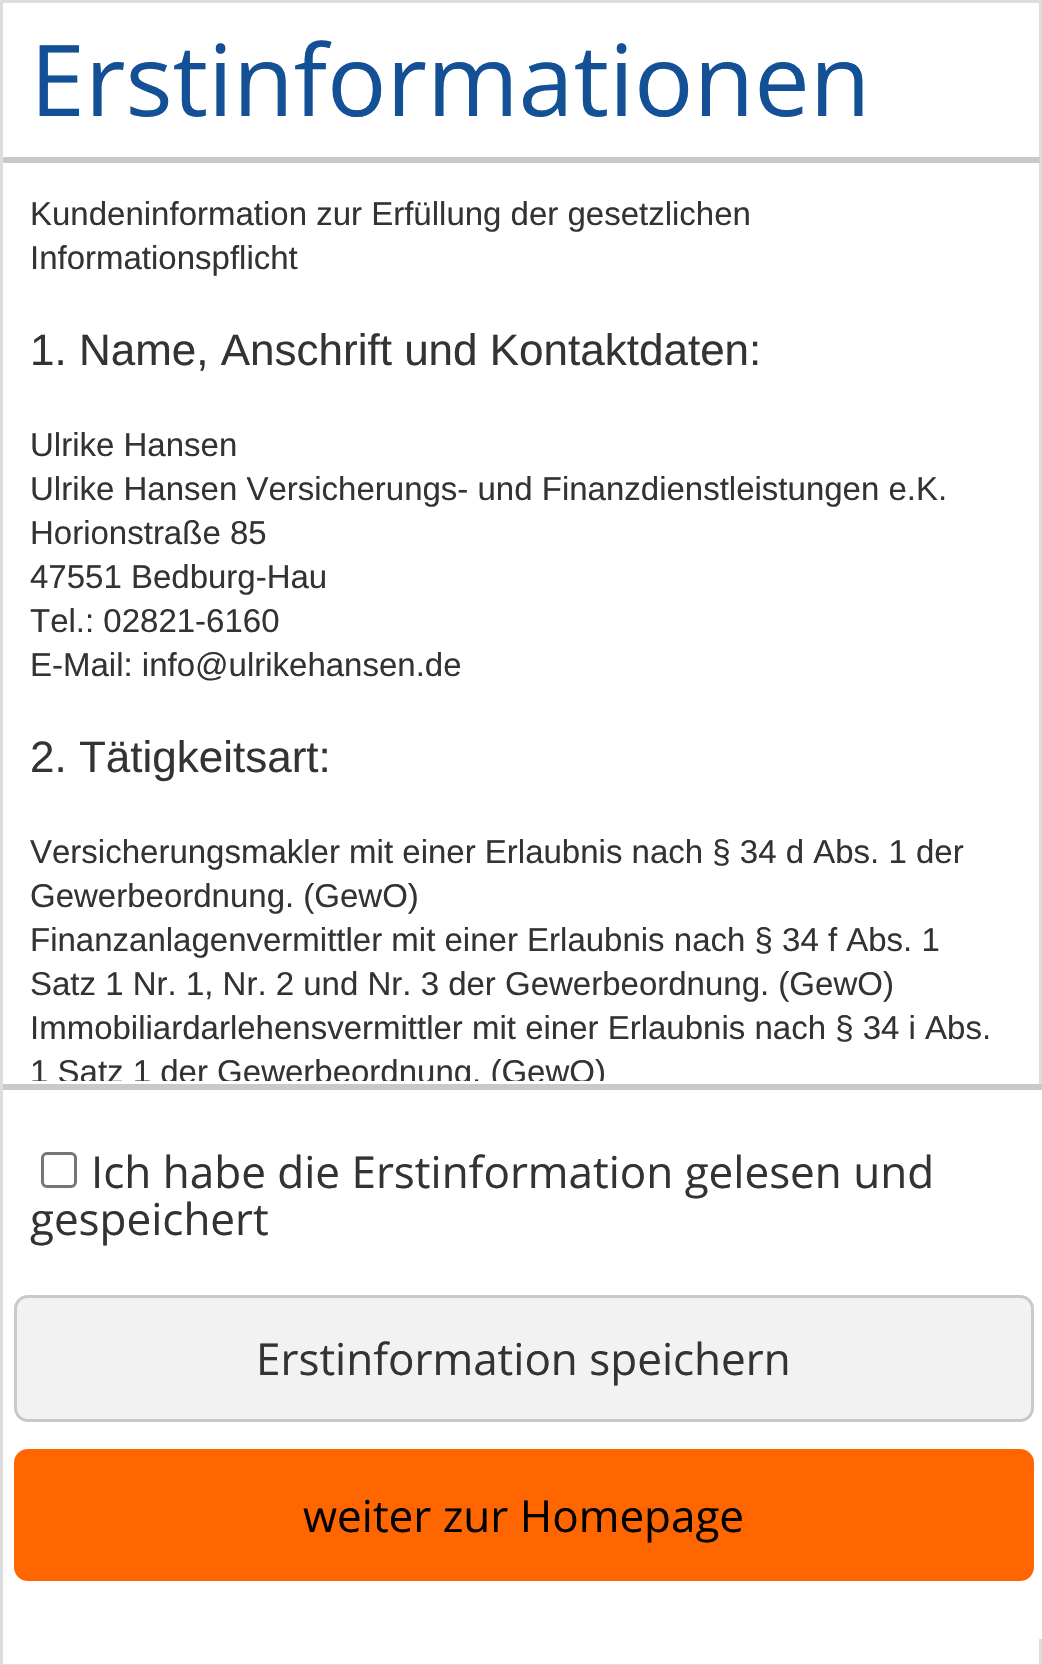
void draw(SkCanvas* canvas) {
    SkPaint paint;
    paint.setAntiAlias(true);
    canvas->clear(0xFFFFFFFF);
    paint.setStyle(SkPaint::kStroke_Style);
    paint.setStrokeWidth(3);
    paint.setColor(0xFFDDDDDD);
    canvas->drawRect(SkRect::MakeXYWH(1.5f, 1.5f, 1039, 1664), paint);
    paint.setStyle(SkPaint::kFill_Style);
    paint.setColor(0xFFC9C9CA);
    canvas->drawRect(SkRect::MakeXYWH(3, 157, 1037, 6), paint);
    SkFont font1(fontMgr->matchFamilyStyle("Open Sans", SkFontStyle::Normal()), 99);
    font1.setSubpixel(true);
    paint.setColor(0xFF135096);
    canvas->drawString("Erstinformationen", 30, 116, font1, paint);
    SkFont font2(fontMgr->matchFamilyStyle("Liberation Sans", SkFontStyle::Normal()), 33);
    font2.setSubpixel(true);
    paint.setColor(0xFF333333);
    canvas->drawString("Kundeninformation zur Erfüllung der gesetzlichen", 30, 225, font2, paint);
    canvas->drawString("Informationspflicht", 30, 269, font2, paint);
    SkFont font3(fontMgr->matchFamilyStyle("Liberation Sans", SkFontStyle::Normal()), 44);
    font3.setSubpixel(true);
    canvas->drawString("1. Name, Anschrift und Kontaktdaten:", 30, 365, font3, paint);
    canvas->drawString("Ulrike Hansen", 30, 456, font2, paint);
    canvas->drawString("Ulrike Hansen Versicherungs- und Finanzdienstleistungen e.K.", 30, 500, font2, paint);
    canvas->drawString("Horionstraße 85", 30, 544, font2, paint);
    canvas->drawString("47551 Bedburg-Hau", 30, 588, font2, paint);
    canvas->drawString("Tel.: 02821-6160", 30, 632, font2, paint);
    canvas->drawString("E-Mail: info@ulrikehansen.de", 30, 676, font2, paint);
    canvas->drawString("2. Tätigkeitsart:", 30, 772, font3, paint);
    canvas->drawString("Versicherungsmakler mit einer Erlaubnis nach § 34 d Abs. 1 der", 30, 863, font2, paint);
    canvas->drawString("Gewerbeordnung. (GewO)", 30, 907, font2, paint);
    canvas->drawString("Finanzanlagenvermittler mit einer Erlaubnis nach § 34 f Abs. 1", 30, 951, font2, paint);
    canvas->drawString("Satz 1 Nr. 1, Nr. 2 und Nr. 3 der Gewerbeordnung. (GewO)", 30, 995, font2, paint);
    canvas->drawString("Immobiliardarlehensvermittler mit einer Erlaubnis nach § 34 i Abs.", 30, 1039, font2, paint);
    canvas->save();
    canvas->clipRect(SkRect::MakeXYWH(3, 162, 1037, 919));
    canvas->drawString("1 Satz 1 der Gewerbeordnung. (GewO)", 30, 1083, font2, paint);
    canvas->restore();
    paint.setColor(0xFFFFFFFF);
    canvas->drawRect(SkRect::MakeXYWH(1039, 1090, 3, 549), paint);
    paint.setColor(0xFFC9C9CA);
    canvas->drawRect(SkRect::MakeXYWH(3, 1084, 1039, 6), paint);
    paint.setStyle(SkPaint::kStroke_Style);
    paint.setColor(0xFF767676);
    canvas->drawRoundRect(SkRect::MakeXYWH(42.5f, 1153.5f, 33, 33), 4.5f, 4.5f, paint);
    SkFont font4(fontMgr->matchFamilyStyle("Open Sans", SkFontStyle::Normal()), 44);
    font4.setSubpixel(true);
    paint.setStyle(SkPaint::kFill_Style);
    paint.setColor(0xFF333333);
    canvas->drawString("Ich habe die Erstinformation gelesen und", 91, 1188, font4, paint);
    canvas->drawString("gespeichert", 30, 1235, font4, paint);
    paint.setColor(0xFFF2F2F2);
    canvas->drawRoundRect(SkRect::MakeXYWH(15.5f, 1296.5f, 1017, 124), 12.5f, 12.5f, paint);
    paint.setStyle(SkPaint::kStroke_Style);
    paint.setColor(0xFFC9C9CA);
    canvas->drawRoundRect(SkRect::MakeXYWH(15.5f, 1296.5f, 1017, 124), 12.5f, 12.5f, paint);
    paint.setStyle(SkPaint::kFill_Style);
    paint.setColor(0xFF333333);
    canvas->drawString("Erstinformation speichern", 256, 1375, font4, paint);
    paint.setColor(0xFFFF6600);
    canvas->drawRoundRect(SkRect::MakeXYWH(17, 1452, 1014, 126), 11, 11, paint);
    paint.setStyle(SkPaint::kStroke_Style);
    paint.setStrokeWidth(6);
    canvas->drawRoundRect(SkRect::MakeXYWH(17, 1452, 1014, 126), 11, 11, paint);
    paint.setStyle(SkPaint::kFill_Style);
    paint.setColor(0xFF000000);
    canvas->drawString("weiter zur Homepage", 303, 1532, font4, paint);
}
